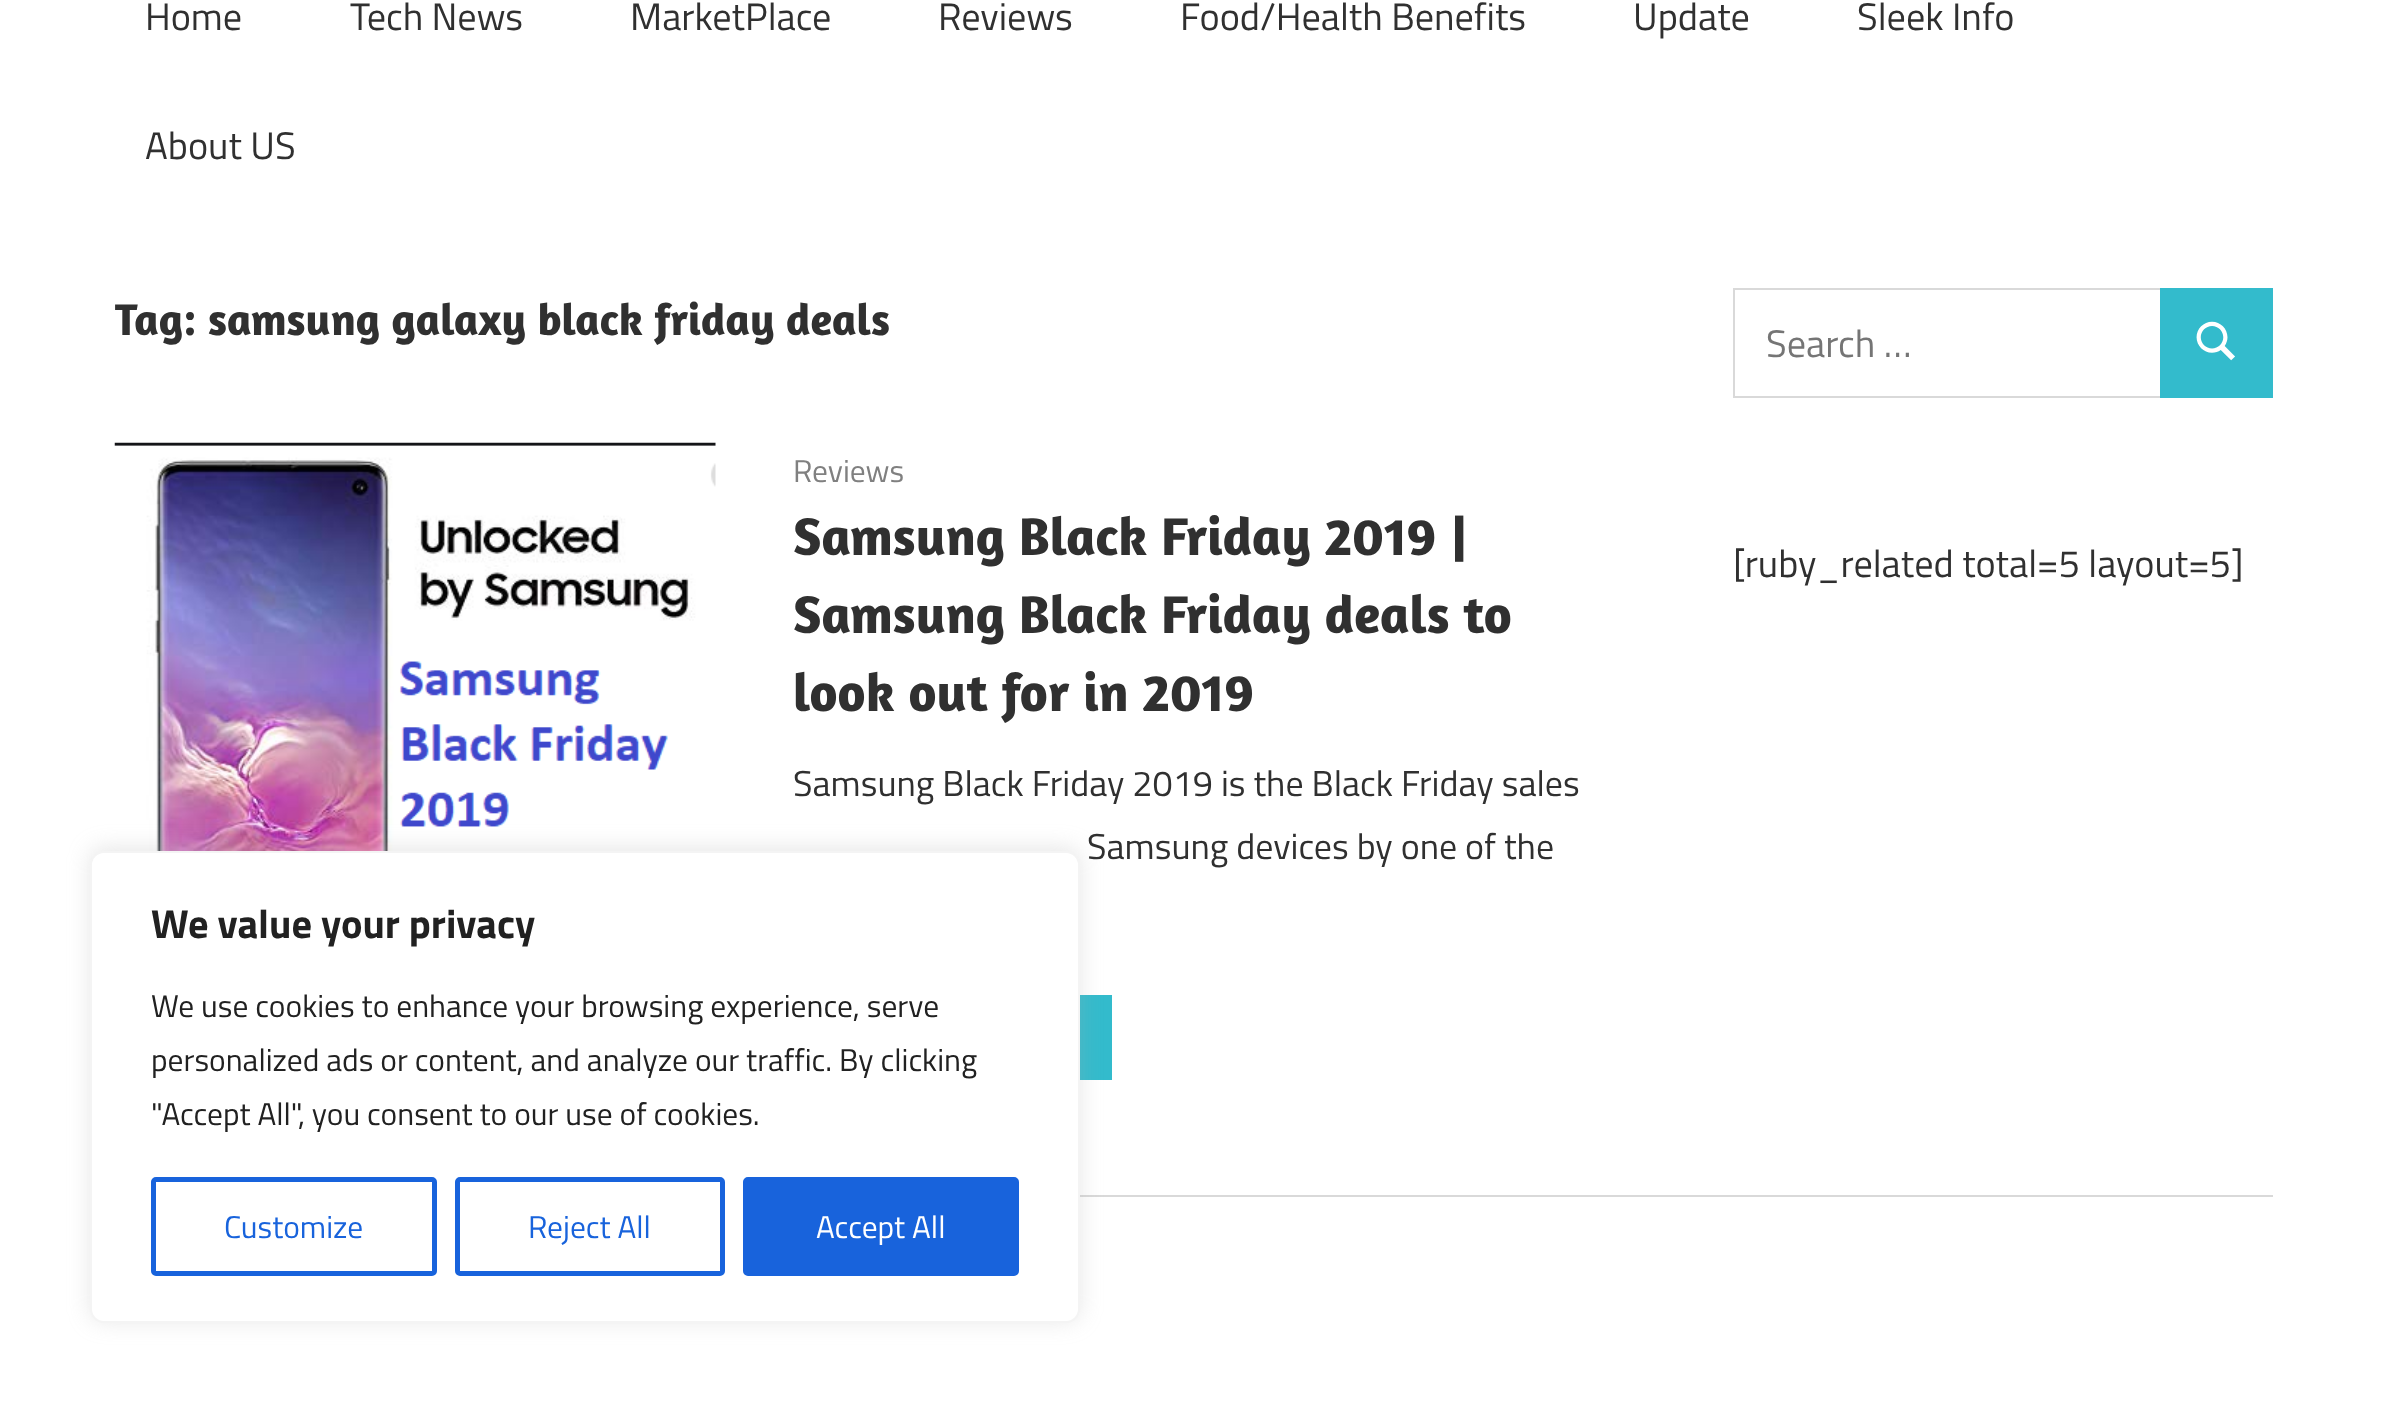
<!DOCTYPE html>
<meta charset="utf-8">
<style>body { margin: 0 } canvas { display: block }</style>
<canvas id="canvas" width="2386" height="1412"></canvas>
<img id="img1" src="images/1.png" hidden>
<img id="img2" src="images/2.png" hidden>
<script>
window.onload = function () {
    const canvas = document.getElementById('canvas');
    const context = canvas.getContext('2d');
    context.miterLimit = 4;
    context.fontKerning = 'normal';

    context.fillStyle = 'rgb(255, 255, 255)';
    context.fillRect(0, 0, 2386, 1412);
    context.drawImage(document.getElementById('img1'), 114, 442, 602, 409);
    context.fillStyle = 'rgb(51, 187, 204)';
    context.fillRect(1080, 995, 32, 85);
    context.strokeStyle = 'rgb(217, 217, 217)';
    context.lineWidth = 2;
    context.strokeRect(1734, 289, 427, 108);
    context.fillRect(2160, 288, 113, 110);
    context.drawImage(document.getElementById('img2'), 2196, 321, 39, 40);
    context.fillStyle = 'rgb(217, 217, 217)';
    context.fillRect(1080, 1195, 1193, 2);
    context.fillStyle = 'rgba(172, 171, 171, 0.3)';
    context.filter = 'blur(11px)';
    context.beginPath();
    context.roundRect(90, 848, 990, 473, 14);
    context.fill();
    context.filter = 'none';
    context.fillStyle = 'rgb(255, 255, 255)';
    context.beginPath();
    context.roundRect(91, 852, 988, 470, 13);
    context.fill();
    context.strokeStyle = 'rgb(244, 244, 244)';
    context.stroke();
    context.beginPath();
    context.roundRect(153.5, 1179.5, 281, 94, 2.5);
    context.strokeStyle = 'rgb(24, 99, 220)';
    context.lineWidth = 5;
    context.stroke();
    context.beginPath();
    context.roundRect(457.5, 1179.5, 265, 94, 2.5);
    context.stroke();
    context.fillStyle = 'rgb(24, 99, 220)';
    context.beginPath();
    context.roundRect(745.5, 1179.5, 271, 94, 2.5);
    context.fill();
    context.stroke();
    context.font = '38.25px Titillium Web';
    context.fillStyle = 'rgb(48, 48, 48)';
    context.fillText('Home', 145, 30);
    context.fillText('Tech News', 350, 30);
    context.fillText('MarketPlace', 630, 30);
    context.fillText('Reviews', 938, 30);
    context.fillText('Food/Health Benefits', 1180, 30);
    context.fillText('Update', 1633, 30);
    context.fillText('Sleek Info', 1857, 30);
    context.fillText('About US', 145, 159);
    context.font = 'bold 45px Amaranth';
    context.fillText('Tag: samsung galaxy black friday deals', 115, 335);
    context.font = '31.5px Titillium Web';
    context.fillStyle = 'rgb(128, 128, 128)';
    context.fillText('Reviews', 793, 482);
    context.font = 'bold 54px Amaranth';
    context.fillStyle = 'rgb(48, 48, 48)';
    context.fillText('Samsung Black Friday 2019 |', 793, 555);
    context.fillText('Samsung Black Friday deals to', 793, 633);
    context.fillText('look out for in 2019', 793, 711);
    context.font = '36px Titillium Web';
    context.fillText('Samsung Black Friday 2019 is the Black Friday sales', 793, 796);
    context.fillText('Samsung devices by one of the', 1087, 859);
    context.font = '38.25px Titillium Web';
    context.fillStyle = 'rgb(117, 117, 117)';
    context.fillText('Search …', 1766, 357);
    context.fillStyle = 'rgb(48, 48, 48)';
    context.fillText('[ruby_related total=5 layout=5]', 1733, 577);
    context.font = 'bold 40.5px Titillium Web';
    context.fillStyle = 'rgb(33, 33, 33)';
    context.fillText('We value your privacy', 151, 938);
    context.font = '31.5px Titillium Web';
    context.fillText('We use cookies to enhance your browsing experience, serve', 151, 1017);
    context.fillText('personalized ads or content, and analyze our traffic. By clicking', 151, 1071);
    context.fillText('"Accept All", you consent to our use of cookies.', 151, 1125);
    context.fillStyle = 'rgb(24, 99, 220)';
    context.fillText('Customize', 224, 1238);
    context.fillText('Reject All', 528, 1238);
    context.fillStyle = 'rgb(255, 255, 255)';
    context.fillText('Accept All', 816, 1238);
};
</script>
